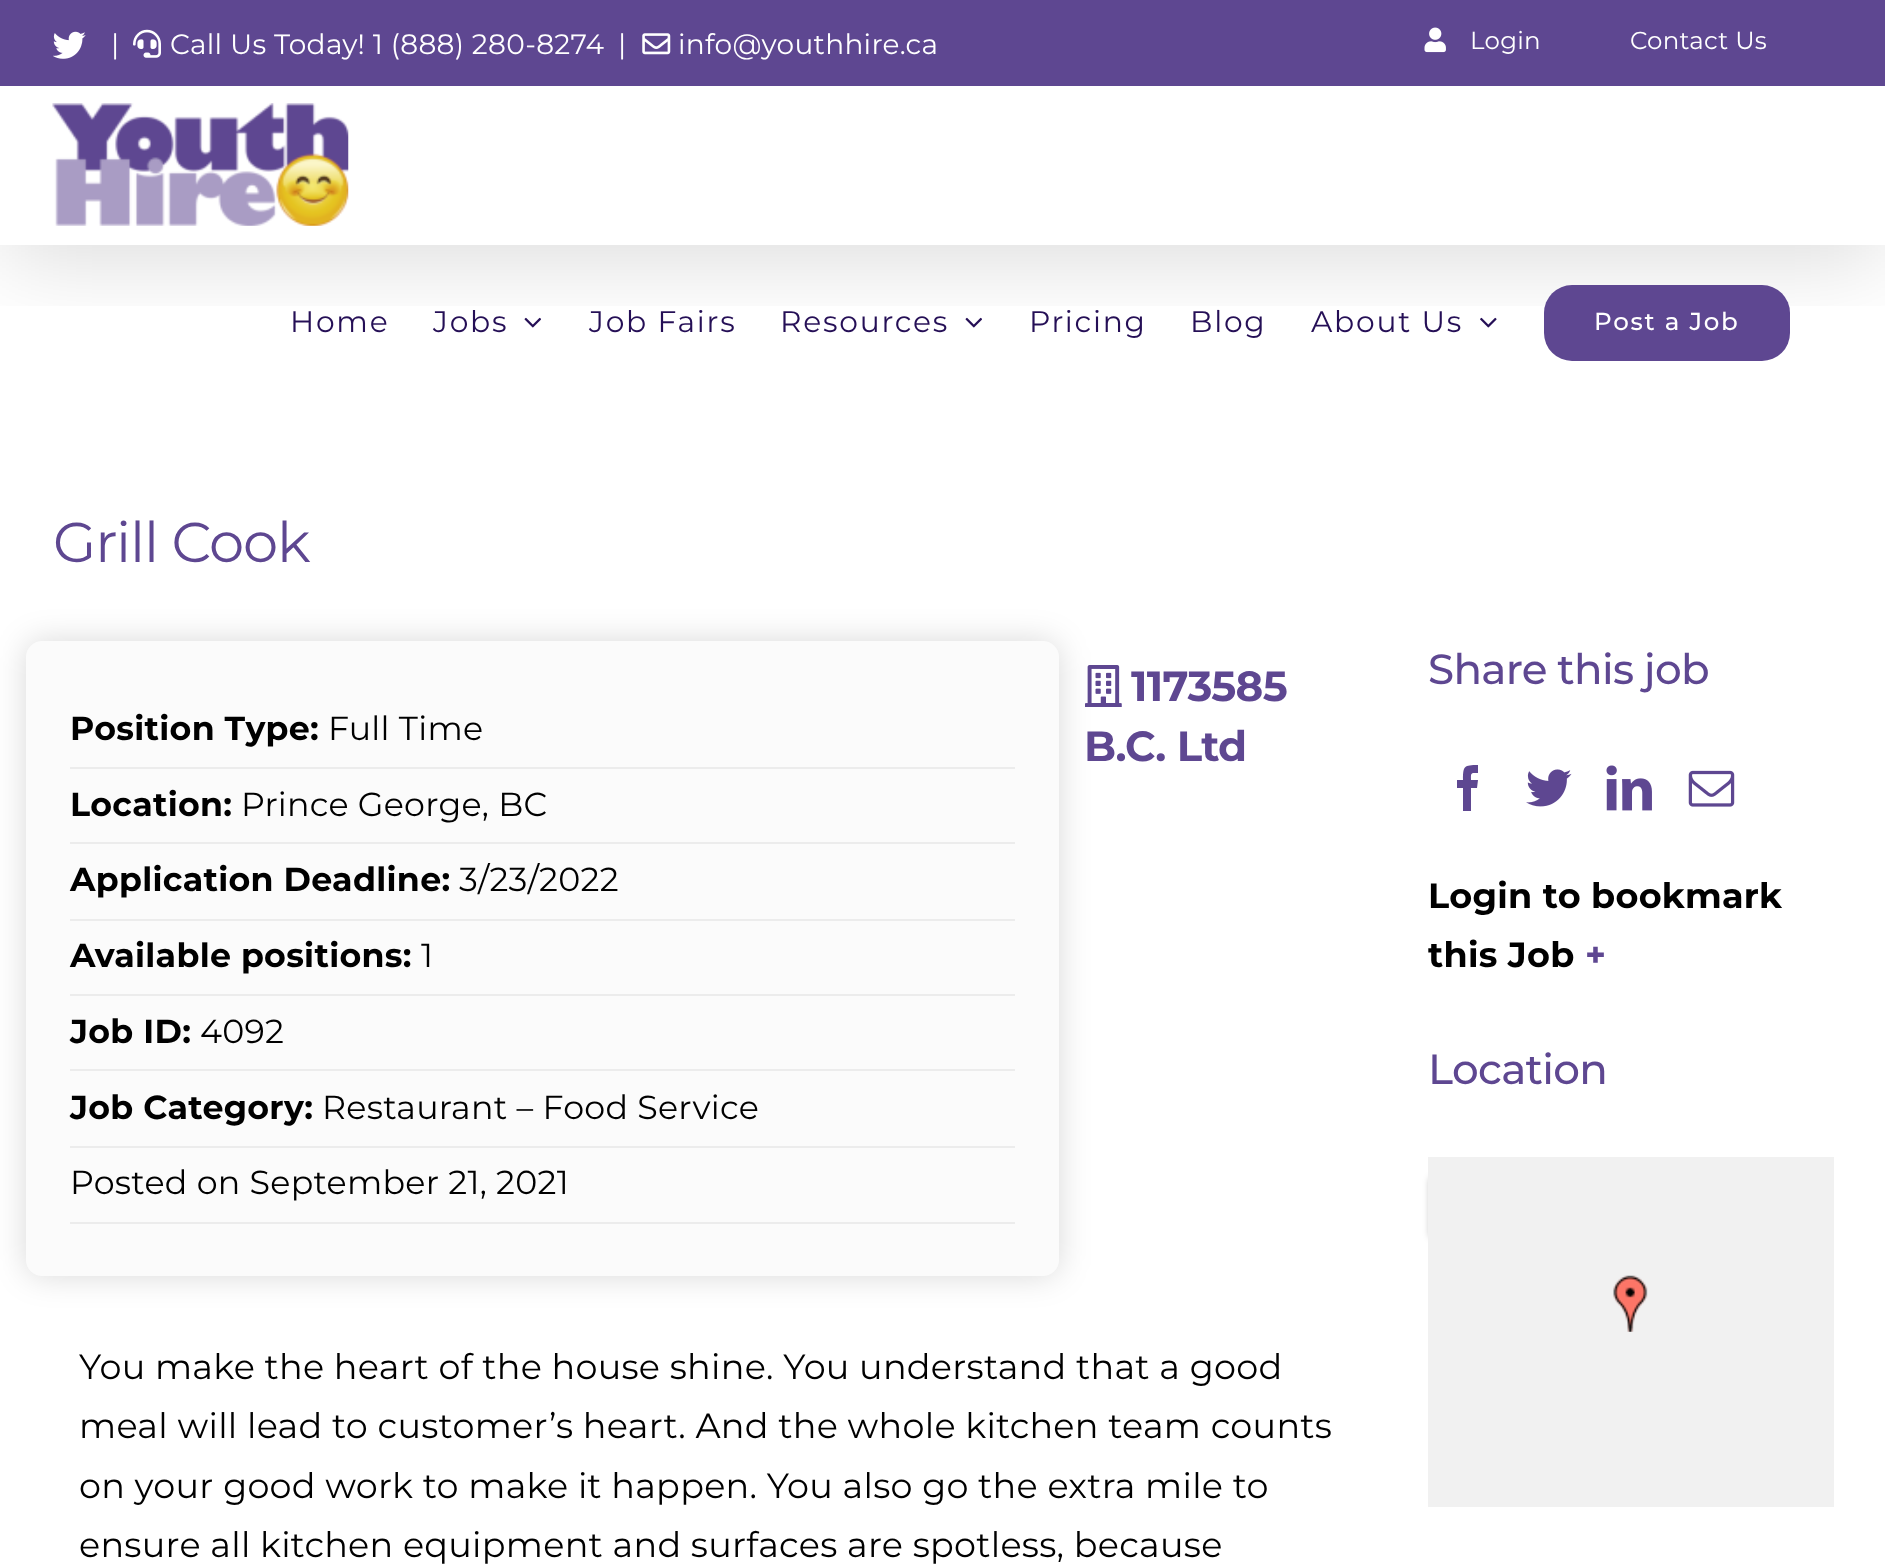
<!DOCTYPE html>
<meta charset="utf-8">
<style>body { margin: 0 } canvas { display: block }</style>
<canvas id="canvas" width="1885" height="1566"></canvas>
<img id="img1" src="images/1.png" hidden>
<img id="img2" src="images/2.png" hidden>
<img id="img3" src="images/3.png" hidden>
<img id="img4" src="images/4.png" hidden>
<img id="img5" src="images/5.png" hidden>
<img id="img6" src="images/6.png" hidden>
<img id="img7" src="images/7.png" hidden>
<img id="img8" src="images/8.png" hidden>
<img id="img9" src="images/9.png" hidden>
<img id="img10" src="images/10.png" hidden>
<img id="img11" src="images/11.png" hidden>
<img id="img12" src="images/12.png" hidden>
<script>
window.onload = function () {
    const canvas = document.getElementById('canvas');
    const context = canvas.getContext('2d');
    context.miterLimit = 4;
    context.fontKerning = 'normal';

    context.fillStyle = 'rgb(255, 255, 255)';
    context.fillRect(0, 0, 1885, 1566);
    context.save();
    context.beginPath();
    context.rect(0, 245, 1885, 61);
    context.clip();
    context.fillStyle = 'rgba(0, 0, 0, 0.14)';
    context.filter = 'blur(44px)';
    context.beginPath();
    context.rect(4, 21, 1879, 238);
    context.fill();
    context.filter = 'none';
    context.restore();
    context.fillStyle = 'rgb(94, 71, 145)';
    context.fillRect(0, 0, 1885, 86);
    context.drawImage(document.getElementById('img1'), 53, 31, 33, 28);
    context.drawImage(document.getElementById('img2'), 133, 29, 28, 29);
    context.drawImage(document.getElementById('img3'), 642, 33, 29, 22);
    context.drawImage(document.getElementById('img4'), 1424, 27, 22, 26);
    context.drawImage(document.getElementById('img5'), 52, 103, 297, 123);
    context.drawImage(document.getElementById('img6'), 524, 317, 17, 11);
    context.drawImage(document.getElementById('img6'), 965, 317, 17, 11);
    context.drawImage(document.getElementById('img7'), 1480, 317, 17, 11);
    context.beginPath();
    context.roundRect(1544, 285, 246, 76, 28);
    context.fill();
    context.fillStyle = 'rgba(0, 0, 0, 0.15)';
    context.filter = 'blur(16px)';
    context.beginPath();
    context.roundRect(26, 641, 1033, 635, 16);
    context.fill();
    context.filter = 'none';
    context.fillStyle = 'rgb(251, 251, 251)';
    context.beginPath();
    context.roundRect(26, 641, 1033, 635, 16);
    context.fill();
    context.fillStyle = 'rgb(236, 236, 236)';
    context.fillRect(70, 767, 945, 2);
    context.fillRect(70, 842, 945, 2);
    context.fillRect(70, 919, 945, 2);
    context.fillRect(70, 994, 945, 2);
    context.fillRect(70, 1069, 945, 2);
    context.fillRect(70, 1146, 945, 2);
    context.fillRect(70, 1222, 945, 2);
    context.drawImage(document.getElementById('img8'), 1085, 665, 37, 42);
    context.fillStyle = 'rgb(94, 71, 145)';
    context.beginPath();
    context.moveTo(1471, 811);
    context.lineTo(1463, 811);
    context.lineTo(1463, 788);
    context.lineTo(1457, 788);
    context.lineTo(1457, 780);
    context.lineTo(1463, 780);
    context.bezierCurveTo(1463, 766, 1464, 765, 1478, 765);
    context.lineTo(1478, 773);
    context.bezierCurveTo(1470, 773, 1471, 773, 1471, 780);
    context.lineTo(1478, 780);
    context.lineTo(1477, 788);
    context.lineTo(1471, 788);
    context.closePath();
    context.fill();
    context.drawImage(document.getElementById('img9'), 1526, 769, 46, 38);
    context.drawImage(document.getElementById('img10'), 1606, 765, 46, 46);
    context.drawImage(document.getElementById('img11'), 1688, 770, 47, 37);
    context.fillStyle = 'rgba(0, 0, 0, 0.3)';
    context.filter = 'blur(3.5px)';
    context.beginPath();
    context.roundRect(1430, 1178, 45, 59, 2);
    context.fill();
    context.filter = 'none';
    context.fillStyle = 'rgb(241, 241, 241)';
    context.fillRect(1428, 1157, 406, 350);
    context.drawImage(document.getElementById('img12'), 1613, 1275, 35, 57);
    context.letterSpacing = '0.28px';
    context.font = '28px Montserrat';
    context.fillStyle = 'rgb(255, 255, 255)';
    context.fillText('|', 111, 54);
    context.fillText('Call Us Today! 1 (888) 280-8274', 170, 54);
    context.fillText('|', 618, 54);
    context.fillText('info@youthhire.ca', 678, 54);
    context.font = '24.5px Montserrat';
    context.fillText('Login', 1470, 49);
    context.fillText('Contact Us', 1630, 49);
    context.letterSpacing = '1.75px';
    context.font = '29.75px Montserrat';
    context.fillStyle = 'rgb(37, 15, 86)';
    context.fillText('Home', 290, 332);
    context.fillText('Jobs', 433, 332);
    context.fillText('Job Fairs', 589, 332);
    context.fillText('Resources', 780, 332);
    context.fillText('Pricing', 1029, 332);
    context.fillText('Blog', 1190, 332);
    context.fillText('About Us', 1311, 332);
    context.font = '500 24.5px Montserrat';
    context.fillStyle = 'rgb(255, 255, 255)';
    context.fillText('Post a Job', 1594, 330);
    context.letterSpacing = '-1.1px';
    context.font = '56px Montserrat';
    context.fillStyle = 'rgb(94, 71, 145)';
    context.fillText('Grill Cook', 53, 562);
    context.letterSpacing = '0.28px';
    context.font = 'bold 33.25px Montserrat';
    context.fillStyle = 'rgb(0, 0, 0)';
    context.fillText('Position Type:', 70, 740);
    context.font = '33.25px Montserrat';
    context.fillText('Full Time', 328, 740);
    context.font = 'bold 33.25px Montserrat';
    context.fillText('Location:', 70, 816);
    context.font = '33.25px Montserrat';
    context.fillText('Prince George, BC', 241, 816);
    context.font = 'bold 33.25px Montserrat';
    context.fillText('Application Deadline:', 70, 891);
    context.font = '33.25px Montserrat';
    context.fillText('3/23/2022', 459, 891);
    context.font = 'bold 33.25px Montserrat';
    context.fillText('Available positions:', 70, 967);
    context.font = '33.25px Montserrat';
    context.fillText('1', 421, 967);
    context.font = 'bold 33.25px Montserrat';
    context.fillText('Job ID:', 70, 1043);
    context.font = '33.25px Montserrat';
    context.fillText('4092', 200, 1043);
    context.font = 'bold 33.25px Montserrat';
    context.fillText('Job Category:', 70, 1119);
    context.font = '33.25px Montserrat';
    context.fillText('Restaurant – Food Service', 322, 1119);
    context.fillText('Posted on September 21, 2021', 70, 1194);
    context.letterSpacing = '-0.7px';
    context.font = 'bold 42px Montserrat';
    context.fillStyle = 'rgb(94, 71, 145)';
    context.fillText('1173585', 1131, 701);
    context.fillText('B.C. Ltd', 1084, 761);
    context.letterSpacing = '0.28px';
    context.font = '35px Montserrat';
    context.fillStyle = 'rgb(0, 0, 0)';
    context.fillText('You make the heart of the house shine. You understand that a good', 79, 1379);
    context.fillText('meal will lead to customer’s heart. And the whole kitchen team counts', 79, 1438);
    context.fillText('on your good work to make it happen. You also go the extra mile to', 79, 1498);
    context.fillText('ensure all kitchen equipment and surfaces are spotless, because', 79, 1557);
    context.letterSpacing = '-0.7px';
    context.font = '500 42px Montserrat';
    context.fillStyle = 'rgb(94, 71, 145)';
    context.fillText('Share this job', 1428, 684);
    context.letterSpacing = '0.28px';
    context.font = 'bold 35px Montserrat';
    context.fillStyle = 'rgb(0, 0, 0)';
    context.fillText('Login to bookmark', 1428, 908);
    context.fillText('this Job', 1428, 967);
    context.fillStyle = 'rgb(94, 71, 145)';
    context.fillText('+', 1585, 967);
    context.letterSpacing = '-0.7px';
    context.font = '500 42px Montserrat';
    context.fillText('Location', 1428, 1084);
};
</script>
